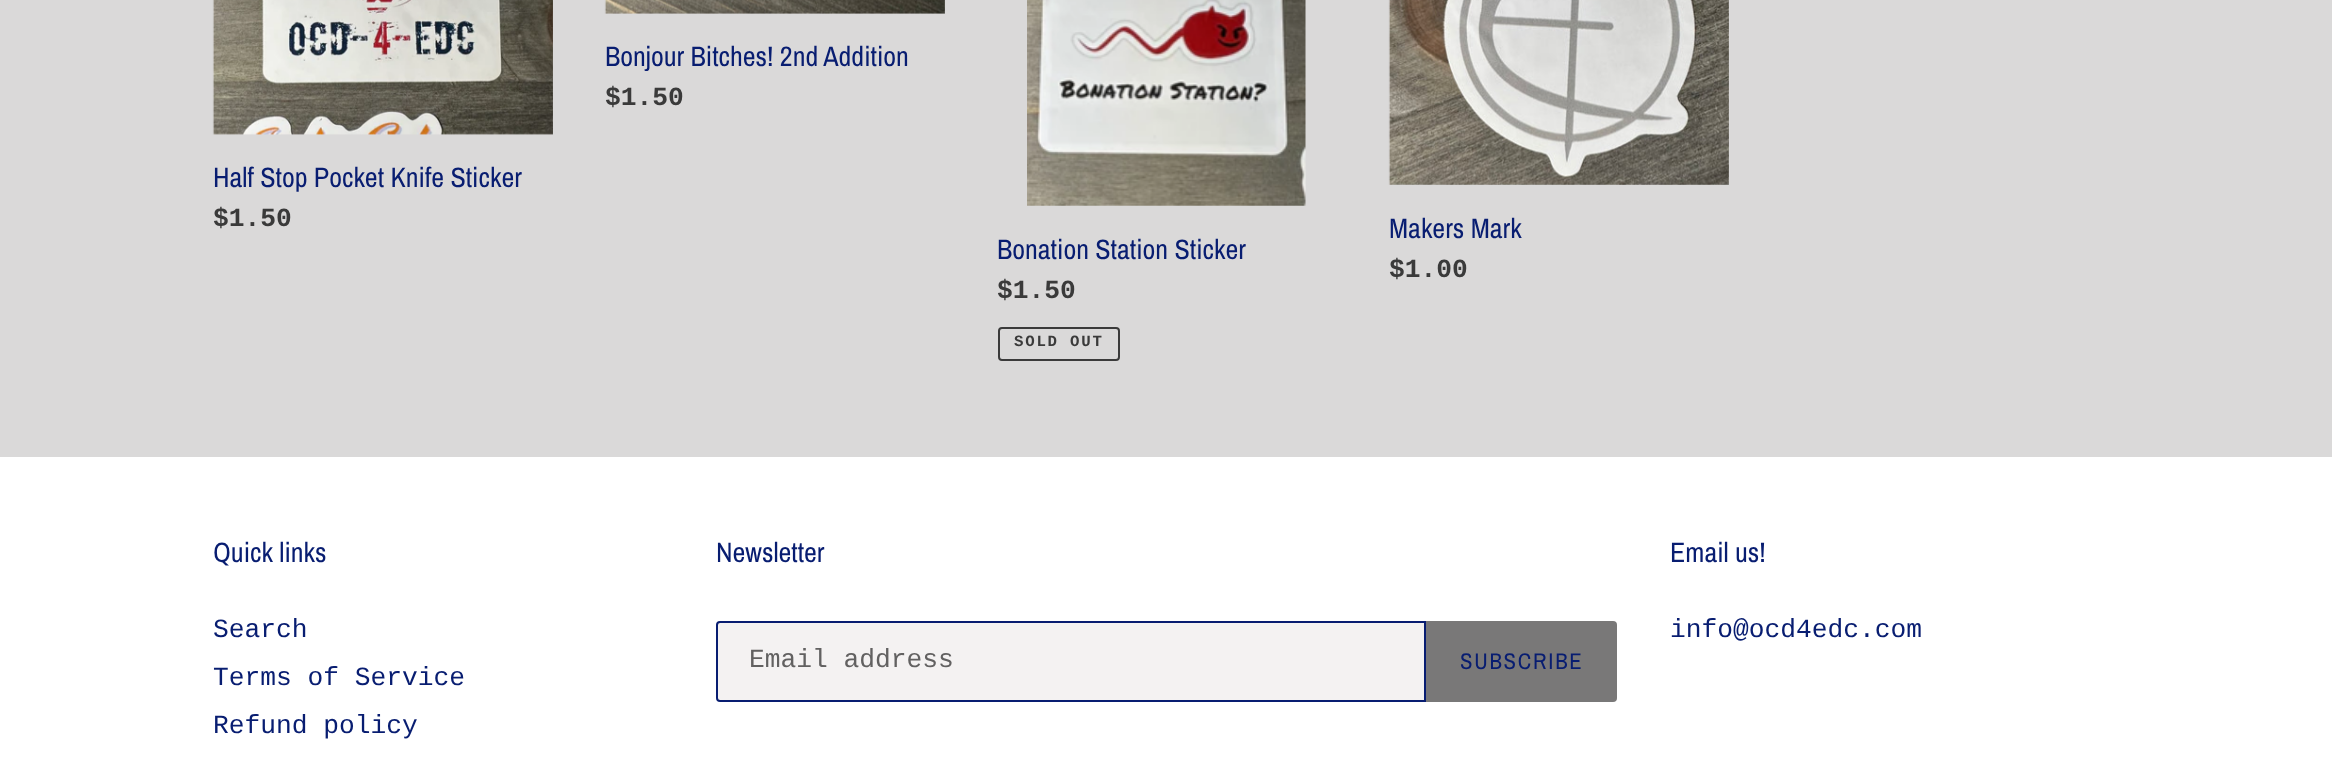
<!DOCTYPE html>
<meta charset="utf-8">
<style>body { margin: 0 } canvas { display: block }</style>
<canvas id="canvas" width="2332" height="776"></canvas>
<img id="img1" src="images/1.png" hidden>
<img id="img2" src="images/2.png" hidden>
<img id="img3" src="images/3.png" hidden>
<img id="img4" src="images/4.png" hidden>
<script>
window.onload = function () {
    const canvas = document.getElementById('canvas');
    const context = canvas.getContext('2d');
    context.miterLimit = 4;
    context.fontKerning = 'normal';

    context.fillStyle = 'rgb(218, 217, 217)';
    context.fillRect(0, 0, 2332, 776);
    context.drawImage(document.getElementById('img1'), 604, 0, 341, 14);
    context.drawImage(document.getElementById('img2'), 212, 0, 341, 135);
    context.drawImage(document.getElementById('img3'), 1027, 0, 279, 206);
    context.beginPath();
    context.roundRect(999, 328, 120, 32, 3);
    context.strokeStyle = 'rgb(58, 58, 58)';
    context.lineWidth = 2;
    context.stroke();
    context.drawImage(document.getElementById('img4'), 1388, 0, 341, 185);
    context.fillStyle = 'rgb(255, 255, 255)';
    context.fillRect(0, 457, 2332, 319);
    context.fillStyle = 'rgb(244, 242, 242)';
    context.beginPath();
    context.roundRect(717, 622, 708, 79, [3, 0, 0, 3]);
    context.fill();
    context.strokeStyle = 'rgb(8, 29, 113)';
    context.stroke();
    context.fillStyle = 'rgb(121, 120, 120)';
    context.beginPath();
    context.roundRect(1426, 621, 191, 81, [0, 4, 4, 0]);
    context.fill();
    context.font = '28px Archivo Narrow';
    context.fillStyle = 'rgb(8, 29, 113)';
    context.fillText('Bonjour Bitches! 2nd Addition', 605, 66);
    context.font = 'bold 26.25px Liberation Mono';
    context.fillStyle = 'rgb(58, 58, 58)';
    context.fillText('$1.50', 605, 105);
    context.font = '28px Archivo Narrow';
    context.fillStyle = 'rgb(8, 29, 113)';
    context.fillText('Half Stop Pocket Knife Sticker', 213, 187);
    context.font = 'bold 26.25px Liberation Mono';
    context.fillStyle = 'rgb(58, 58, 58)';
    context.fillText('$1.50', 213, 226);
    context.font = '28px Archivo Narrow';
    context.fillStyle = 'rgb(8, 29, 113)';
    context.fillText('Bonation Station Sticker', 997, 259);
    context.font = 'bold 26.25px Liberation Mono';
    context.fillStyle = 'rgb(58, 58, 58)';
    context.fillText('$1.50', 997, 298);
    context.letterSpacing = '1.75px';
    context.font = 'bold 15.75px Liberation Mono';
    context.fillText('SOLD OUT', 1014, 346);
    context.letterSpacing = '0px';
    context.font = '28px Archivo Narrow';
    context.fillStyle = 'rgb(8, 29, 113)';
    context.fillText('Makers Mark', 1389, 238);
    context.font = 'bold 26.25px Liberation Mono';
    context.fillStyle = 'rgb(58, 58, 58)';
    context.fillText('$1.00', 1389, 277);
    context.font = '28px Archivo Narrow';
    context.fillStyle = 'rgb(8, 29, 113)';
    context.fillText('Quick links', 213, 562);
    context.font = '26.25px Liberation Mono';
    context.fillText('Search', 213, 637);
    context.fillText('Terms of Service', 213, 685);
    context.fillText('Refund policy', 213, 733);
    context.font = '28px Archivo Narrow';
    context.fillText('Newsletter', 716, 562);
    context.font = '26.25px Liberation Mono';
    context.fillStyle = 'rgb(98, 97, 97)';
    context.fillText('Email address', 749, 667);
    context.letterSpacing = '1.75px';
    context.font = '22.75px Archivo Narrow';
    context.fillStyle = 'rgb(8, 29, 113)';
    context.fillText('SUBSCRIBE', 1460, 669);
    context.letterSpacing = '0px';
    context.font = '28px Archivo Narrow';
    context.fillText('Email us!', 1670, 562);
    context.font = '26.25px Liberation Mono';
    context.fillText('info@ocd4edc.com', 1670, 637);
};
</script>
